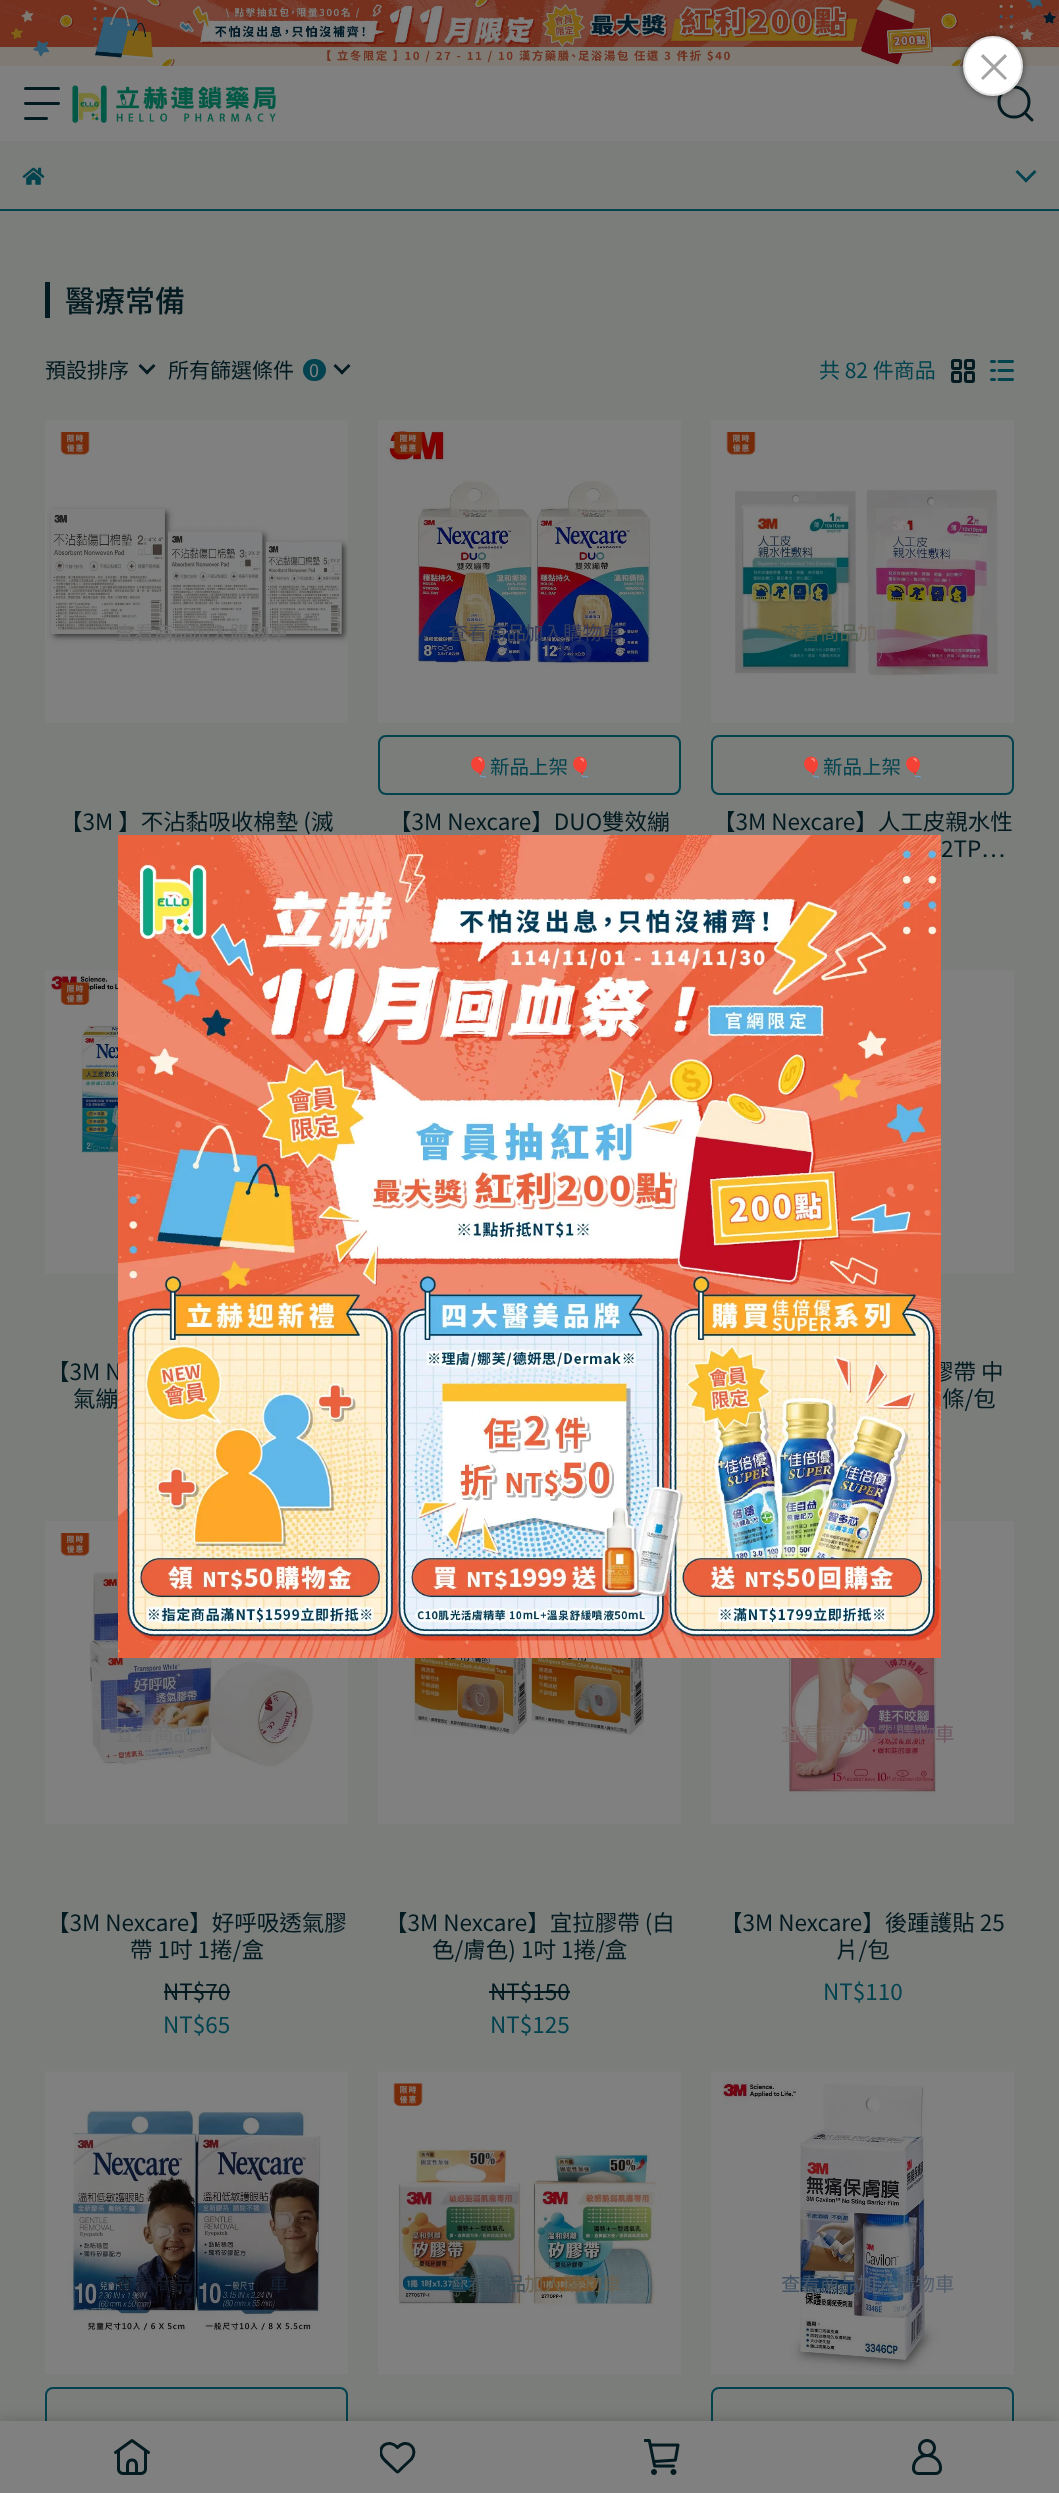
<!DOCTYPE html>
<meta charset="utf-8">
<style>body { margin: 0 } canvas { display: block }</style>
<canvas id="canvas" width="1059" height="2493"></canvas>
<img id="img1" src="images/1.png" hidden>
<img id="img2" src="images/2.png" hidden>
<img id="img3" src="images/3.png" hidden>
<img id="img4" src="images/4.png" hidden>
<img id="img5" src="images/5.png" hidden>
<img id="img6" src="images/6.png" hidden>
<img id="img7" src="images/8.png" hidden>
<img id="img8" src="images/9.png" hidden>
<img id="img9" src="images/10.png" hidden>
<img id="img10" src="images/11.png" hidden>
<img id="img11" src="images/12.png" hidden>
<img id="img12" src="images/13.png" hidden>
<img id="img13" src="images/14.png" hidden>
<img id="img14" src="images/15.png" hidden>
<img id="img15" src="images/16.png" hidden>
<img id="img16" src="images/17.png" hidden>
<img id="img17" src="images/18.png" hidden>
<img id="img18" src="images/19.png" hidden>
<img id="img19" src="images/20.png" hidden>
<img id="img20" src="images/21.png" hidden>
<img id="img21" src="images/22.png" hidden>
<img id="img22" src="images/23.png" hidden>
<img id="img23" src="images/24.png" hidden>
<img id="img24" src="images/25.png" hidden>
<img id="img25" src="images/7.png" hidden>
<script>
window.onload = function () {
    const canvas = document.getElementById('canvas');
    const context = canvas.getContext('2d');
    context.miterLimit = 4;
    context.fontKerning = 'normal';

    context.fillStyle = 'rgb(128, 128, 128)';
    context.fillRect(0, 0, 1059, 2493);
    context.drawImage(document.getElementById('img1'), 0, 0, 1059, 66);
    context.drawImage(document.getElementById('img2'), 24, 87, 36, 33);
    context.drawImage(document.getElementById('img3'), 72, 85, 204, 38);
    context.save();
    context.beginPath();
    context.rect(996, 86, 39, 36);
    context.clip();
    context.beginPath();
    context.moveTo(1029, 102);
    context.bezierCurveTo(1029, 110.5, 1022.5, 117, 1014, 117);
    context.bezierCurveTo(1005.5, 117, 999, 110.5, 999, 102);
    context.bezierCurveTo(999, 93.5, 1005.5, 87, 1014, 87);
    context.bezierCurveTo(1022.5, 87, 1029, 93.5, 1029, 102);
    context.closePath();
    context.strokeStyle = 'rgb(3, 26, 32)';
    context.lineWidth = 3;
    context.lineCap = 'round';
    context.lineJoin = 'round';
    context.stroke();
    context.restore();
    context.beginPath();
    context.moveTo(1026, 114);
    context.lineTo(1032, 120);
    context.strokeStyle = 'rgb(3, 26, 32)';
    context.lineWidth = 3;
    context.lineCap = 'round';
    context.lineJoin = 'round';
    context.stroke();
    context.fillStyle = 'rgb(123, 125, 123)';
    context.fillRect(0, 141, 1059, 2280);
    context.beginPath();
    context.roundRect(46, 2388, 301, 58, 7);
    context.strokeStyle = 'rgb(2, 67, 79)';
    context.lineWidth = 2;
    context.lineJoin = 'miter';
    context.stroke();
    context.beginPath();
    context.roundRect(712, 2388, 301, 58, 7);
    context.stroke();
    context.fillStyle = 'rgba(0, 0, 0, 0.2)';
    context.filter = 'blur(7.5px)';
    context.beginPath();
    context.rect(0, 2421, 1059, 72);
    context.fill();
    context.filter = 'none';
    context.fillStyle = 'rgb(128, 128, 128)';
    context.fillRect(0, 2421, 1059, 72);
    context.drawImage(document.getElementById('img4'), 114, 2439, 36, 36);
    context.save();
    context.beginPath();
    context.rect(380, 2439, 36, 36);
    context.clip();
    context.beginPath();
    context.moveTo(411.5, 2446);
    context.bezierCurveTo(407, 2441.5, 401, 2443.5, 397.5, 2447.5);
    context.bezierCurveTo(388.5, 2438, 376, 2447, 382.5, 2457.5);
    context.bezierCurveTo(385.5, 2461.5, 389.5, 2464.5, 393, 2468);
    context.bezierCurveTo(399, 2474, 396.5, 2473, 404, 2466);
    context.lineTo(411.5, 2459);
    context.bezierCurveTo(414.5, 2455, 415, 2449.5, 411.5, 2446);
    context.closePath();
    context.strokeStyle = 'rgb(3, 26, 32)';
    context.lineWidth = 3;
    context.lineJoin = 'round';
    context.stroke();
    context.restore();
    context.drawImage(document.getElementById('img5'), 644, 2439, 36, 36);
    context.drawImage(document.getElementById('img6'), 912, 2439, 30, 36);
    context.fillStyle = 'rgba(0, 0, 0, 0.5)';
    context.filter = 'blur(3px)';
    context.beginPath();
    context.roundRect(963, 36, 60, 60, 30);
    context.fill();
    context.filter = 'none';
    context.fillStyle = 'rgb(255, 255, 255)';
    context.beginPath();
    context.arc(993, 66, 29, 0, 2 * Math.PI);
    context.fill();
    context.strokeStyle = 'rgb(226, 226, 226)';
    context.stroke();
    context.fillStyle = 'rgb(163, 163, 163)';
    context.beginPath();
    context.moveTo(983, 54);
    context.lineTo(1007, 78);
    context.lineTo(1005, 80);
    context.lineTo(981, 56.5);
    context.closePath();
    context.fill();
    context.beginPath();
    context.moveTo(981, 78);
    context.lineTo(1005, 54);
    context.lineTo(1007, 56.5);
    context.lineTo(983, 80);
    context.closePath();
    context.fill();
    context.fillStyle = 'rgb(2, 67, 79)';
    context.fillRect(0, 209, 1059, 2);
    context.drawImage(document.getElementById('img7'), 22, 167, 23, 18);
    context.beginPath();
    context.moveTo(1024, 180.5);
    context.lineTo(1034.5, 170);
    context.lineTo(1036.5, 172);
    context.lineTo(1026, 182.5);
    context.closePath();
    context.fill();
    context.beginPath();
    context.moveTo(1015.5, 172);
    context.lineTo(1017.5, 170);
    context.lineTo(1028, 180.5);
    context.lineTo(1026, 182.5);
    context.closePath();
    context.fill();
    context.fillStyle = 'rgb(3, 26, 32)';
    context.fillRect(45, 282, 5, 36);
    context.beginPath();
    context.moveTo(153.5, 364);
    context.lineTo(155.5, 366);
    context.lineTo(147, 374.5);
    context.lineTo(145, 372.5);
    context.closePath();
    context.fill();
    context.beginPath();
    context.moveTo(140.5, 364);
    context.lineTo(149, 372.5);
    context.lineTo(147, 374.5);
    context.lineTo(138.5, 366);
    context.closePath();
    context.fill();
    context.beginPath();
    context.moveTo(348.5, 364);
    context.lineTo(350.5, 366);
    context.lineTo(342, 374.5);
    context.lineTo(340, 372.5);
    context.closePath();
    context.fill();
    context.beginPath();
    context.moveTo(335.5, 364);
    context.lineTo(344, 372.5);
    context.lineTo(342, 374.5);
    context.lineTo(333.5, 366);
    context.closePath();
    context.fill();
    context.fillStyle = 'rgb(2, 67, 79)';
    context.beginPath();
    context.roundRect(303, 359, 23, 22, 11);
    context.fill();
    context.beginPath();
    context.roundRect(952.5, 360.5, 8, 8, 1.5);
    context.strokeStyle = 'rgb(3, 26, 32)';
    context.lineWidth = 3;
    context.stroke();
    context.beginPath();
    context.roundRect(952.5, 372.5, 8, 9, 1.5);
    context.stroke();
    context.beginPath();
    context.roundRect(965.5, 360.5, 8, 8, 1.5);
    context.stroke();
    context.beginPath();
    context.roundRect(965.5, 372.5, 8, 9, 1.5);
    context.stroke();
    context.drawImage(document.getElementById('img8'), 990, 360, 24, 21);
    context.drawImage(document.getElementById('img9'), 45, 420, 303, 303);
    context.drawImage(document.getElementById('img10'), 60, 432, 30, 23);
    context.drawImage(document.getElementById('img11'), 378, 420, 303, 303);
    context.drawImage(document.getElementById('img12'), 393, 432, 30, 23);
    context.beginPath();
    context.roundRect(379, 736, 301, 58, 7);
    context.strokeStyle = 'rgb(2, 67, 79)';
    context.lineWidth = 2;
    context.stroke();
    context.drawImage(document.getElementById('img13'), 711, 420, 303, 303);
    context.drawImage(document.getElementById('img10'), 726, 432, 30, 23);
    context.beginPath();
    context.roundRect(712, 736, 301, 58, 7);
    context.stroke();
    context.drawImage(document.getElementById('img14'), 45, 970, 73, 304);
    context.drawImage(document.getElementById('img15'), 60, 982, 30, 23);
    context.drawImage(document.getElementById('img16'), 941, 970, 73, 304);
    context.drawImage(document.getElementById('img17'), 45, 1521, 303, 303);
    context.drawImage(document.getElementById('img18'), 60, 1533, 30, 23);
    context.fillStyle = 'rgb(3, 26, 32)';
    context.fillRect(164, 1991, 66, 2);
    context.drawImage(document.getElementById('img19'), 378, 1658, 303, 166);
    context.fillRect(489, 1991, 81, 2);
    context.drawImage(document.getElementById('img20'), 711, 1521, 303, 303);
    context.drawImage(document.getElementById('img21'), 45, 2071, 303, 304);
    context.drawImage(document.getElementById('img22'), 378, 2071, 303, 304);
    context.drawImage(document.getElementById('img23'), 393, 2083, 30, 23);
    context.drawImage(document.getElementById('img24'), 711, 2071, 303, 304);
    context.font = '500 30px Noto Sans TC';
    context.fillText('醫療常備', 65, 312);
    context.font = '21px Noto Sans TC';
    context.fillText('預設排序', 45, 378);
    context.fillText('所有篩選條件', 168, 378);
    context.font = '18px Noto Sans TC';
    context.fillStyle = 'rgb(128, 128, 128)';
    context.fillText('0', 309, 377);
    context.font = '21px Noto Sans TC';
    context.fillStyle = 'rgb(2, 67, 79)';
    context.fillText('共 82 件商品', 819, 378);
    context.font = '19.5px Noto Sans TC';
    context.fillStyle = 'rgb(111, 111, 111)';
    context.fillText('查看商品', 115, 640);
    context.fillText('加入購物車', 191, 640);
    context.font = '22.5px Noto Sans TC';
    context.fillStyle = 'rgb(3, 26, 32)';
    context.fillText('【3M 】不沾黏吸收棉墊 (滅', 60, 830);
    context.font = '19.5px Noto Sans TC';
    context.fillStyle = 'rgb(62, 69, 89)';
    context.fillText('查看商品', 448, 640);
    context.fillStyle = 'rgb(55, 61, 92)';
    context.fillText('加入購物車', 524, 640);
    context.font = '19.5px Noto Color Emoji';
    context.fillStyle = 'rgb(2, 67, 79)';
    context.fillText('🎈', 466, 774);
    context.font = '19.5px Noto Sans TC';
    context.fillText('新品上架', 490, 774);
    context.font = '19.5px Noto Color Emoji';
    context.fillText('🎈', 568, 774);
    context.font = '22.5px Noto Sans TC';
    context.fillStyle = 'rgb(3, 26, 32)';
    context.fillText('【3M Nexcare】DUO雙效繃', 389, 830);
    context.font = '19.5px Noto Sans TC';
    context.fillStyle = 'rgb(83, 97, 80)';
    context.fillText('查看商品', 781, 640);
    context.fillStyle = 'rgb(118, 107, 96)';
    context.fillText('加', 857, 640);
    context.font = '19.5px Noto Color Emoji';
    context.fillStyle = 'rgb(2, 67, 79)';
    context.fillText('🎈', 799, 774);
    context.font = '19.5px Noto Sans TC';
    context.fillText('新品上架', 823, 774);
    context.font = '19.5px Noto Color Emoji';
    context.fillText('🎈', 901, 774);
    context.font = '22.5px Noto Sans TC';
    context.fillStyle = 'rgb(3, 26, 32)';
    context.fillText('【3M Nexcare】人工皮親水性', 713, 830);
    context.fillText('2TP…', 941, 857);
    context.fillText('【3M N', 47, 1380);
    context.fillText('氣繃', 73, 1407);
    context.fillText('膠帶 中', 931, 1380);
    context.drawImage(document.getElementById('img25'), 118, 835, 823, 823);
    context.fillText('條/包', 942, 1407);
    context.font = '19.5px Noto Sans TC';
    context.fillStyle = 'rgb(111, 111, 111)';
    context.fillText('查看商品', 115, 1741);
    context.font = '22.5px Noto Sans TC';
    context.fillStyle = 'rgb(3, 26, 32)';
    context.fillText('【3M Nexcare】好呼吸透氣膠', 47, 1931);
    context.fillText('帶 1吋 1捲/盒', 130, 1958);
    context.fillText('NT$70', 163, 2000);
    context.fillStyle = 'rgb(2, 67, 79)';
    context.fillText('NT$65', 163, 2033);
    context.fillStyle = 'rgb(3, 26, 32)';
    context.fillText('【3M Nexcare】宜拉膠帶 (白', 385, 1931);
    context.fillText('色/膚色) 1吋 1捲/盒', 432, 1958);
    context.fillText('NT$150', 490, 2000);
    context.fillStyle = 'rgb(2, 67, 79)';
    context.fillText('NT$125', 490, 2033);
    context.font = '19.5px Noto Sans TC';
    context.fillStyle = 'rgb(122, 111, 109)';
    context.fillText('查看商品', 781, 1741);
    context.fillStyle = 'rgb(111, 87, 98)';
    context.fillText('加入購物車', 857, 1741);
    context.font = '22.5px Noto Sans TC';
    context.fillStyle = 'rgb(3, 26, 32)';
    context.fillText('【3M Nexcare】後踵護貼 25', 720, 1931);
    context.fillText('片/包', 836, 1958);
    context.fillStyle = 'rgb(2, 67, 79)';
    context.fillText('NT$110', 823, 2000);
    context.font = '19.5px Noto Sans TC';
    context.fillStyle = 'rgb(20, 27, 40)';
    context.fillText('查看商品', 115, 2291);
    context.fillStyle = 'rgb(21, 34, 50)';
    context.fillText('車', 269, 2291);
    context.fillStyle = 'rgb(62, 80, 89)';
    context.fillText('查看商品', 448, 2291);
    context.fillStyle = 'rgb(108, 98, 80)';
    context.fillText('加入購物車', 524, 2291);
    context.fillStyle = 'rgb(69, 85, 101)';
    context.fillText('查看商品', 781, 2291);
    context.fillStyle = 'rgb(82, 93, 108)';
    context.fillText('加入購物車', 857, 2291);
};
</script>
